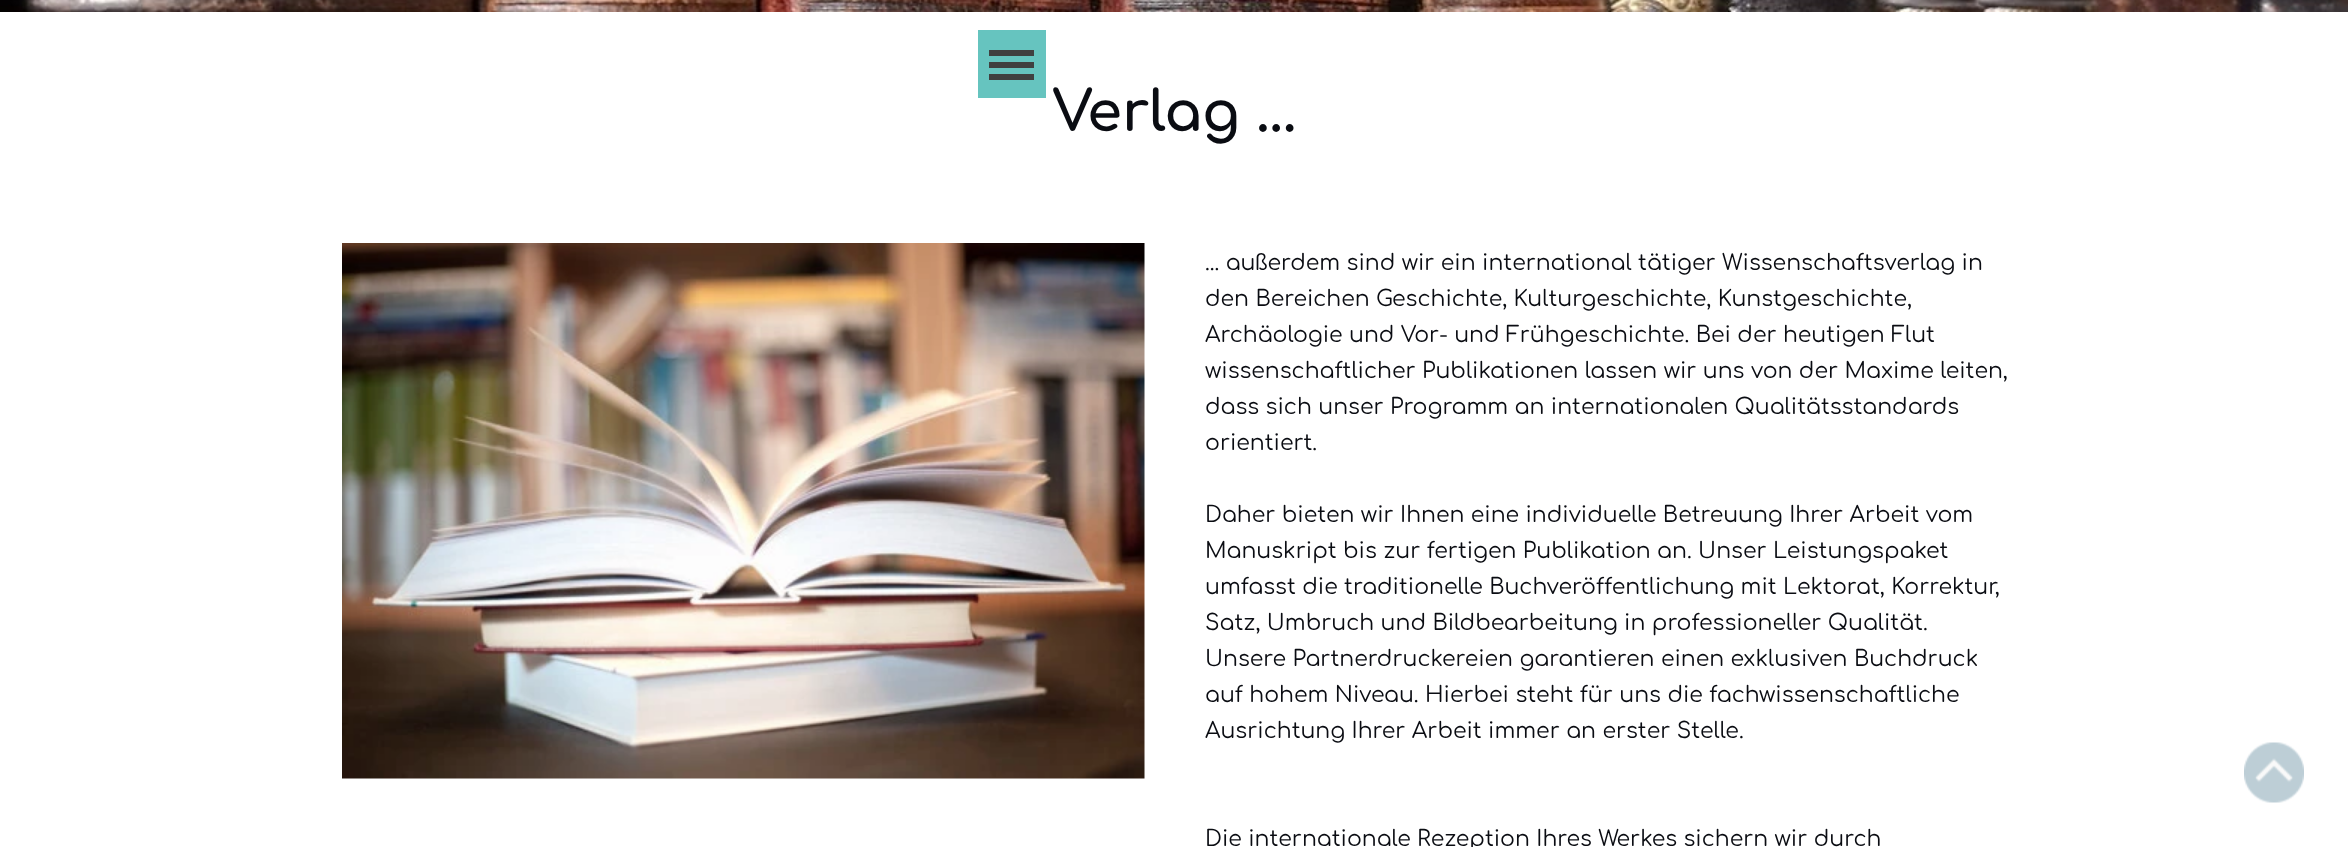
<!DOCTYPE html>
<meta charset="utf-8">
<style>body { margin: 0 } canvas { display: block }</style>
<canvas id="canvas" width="2348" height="847"></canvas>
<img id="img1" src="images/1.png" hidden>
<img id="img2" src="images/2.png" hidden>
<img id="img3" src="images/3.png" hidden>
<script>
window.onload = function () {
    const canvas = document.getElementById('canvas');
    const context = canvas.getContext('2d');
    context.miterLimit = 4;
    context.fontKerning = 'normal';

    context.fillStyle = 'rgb(255, 255, 255)';
    context.fillRect(0, 0, 2348, 847);
    context.drawImage(document.getElementById('img1'), 0, 0, 2348, 12);
    context.fillStyle = 'rgb(102, 196, 191)';
    context.fillRect(978, 30, 68, 68);
    context.fillStyle = 'rgb(64, 64, 64)';
    context.fillRect(989, 50, 45, 6);
    context.fillRect(989, 62, 45, 6);
    context.fillRect(989, 74, 45, 6);
    context.drawImage(document.getElementById('img2'), 342, 243, 803, 536);
    context.drawImage(document.getElementById('img3'), 2244, 742, 60, 61);
    context.font = 'bold 56px Comfortaa';
    context.fillStyle = 'rgb(10, 12, 18)';
    context.fillText('Verlag ...', 1052, 131);
    context.font = '22px Comfortaa';
    context.fillText('... außerdem sind wir ein international tätiger Wissenschaftsverlag in', 1205, 270);
    context.fillText('den Bereichen Geschichte, Kulturgeschichte, Kunstgeschichte,', 1205, 306);
    context.fillText('Archäologie und Vor- und Frühgeschichte. Bei der heutigen Flut', 1205, 342);
    context.fillText('wissenschaftlicher Publikationen lassen wir uns von der Maxime leiten,', 1205, 378);
    context.fillText('dass sich unser Programm an internationalen Qualitätsstandards', 1205, 414);
    context.fillText('orientiert.', 1205, 450);
    context.fillText('Daher bieten wir Ihnen eine individuelle Betreuung Ihrer Arbeit vom', 1205, 522);
    context.fillText('Manuskript bis zur fertigen Publikation an. Unser Leistungspaket', 1205, 558);
    context.fillText('umfasst die traditionelle Buchveröffentlichung mit Lektorat, Korrektur,', 1205, 594);
    context.fillText('Satz, Umbruch und Bildbearbeitung in professioneller Qualität.', 1205, 630);
    context.fillText('Unsere Partnerdruckereien garantieren einen exklusiven Buchdruck', 1205, 666);
    context.fillText('auf hohem Niveau. Hierbei steht für uns die fachwissenschaftliche', 1205, 702);
    context.fillText('Ausrichtung Ihrer Arbeit immer an erster Stelle.', 1205, 738);
    context.fillText('Die internationale Rezeption Ihres Werkes sichern wir durch', 1205, 846);
};
</script>
